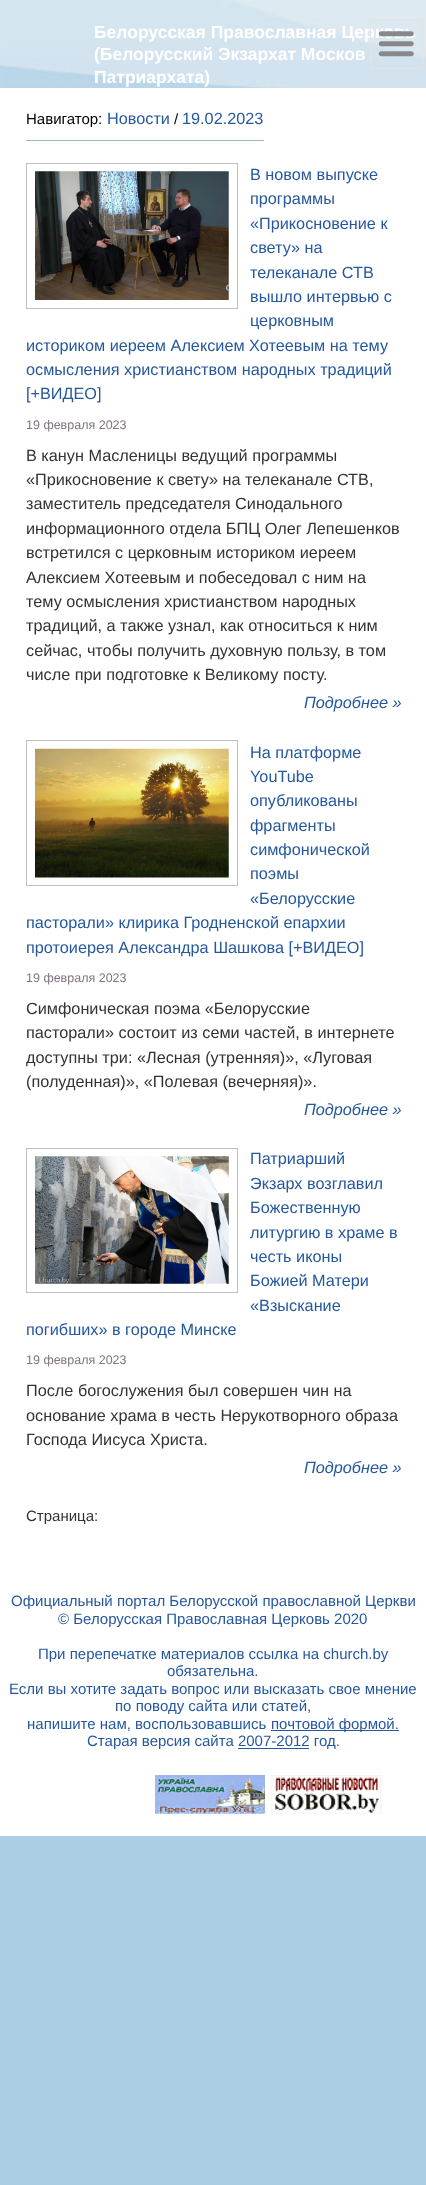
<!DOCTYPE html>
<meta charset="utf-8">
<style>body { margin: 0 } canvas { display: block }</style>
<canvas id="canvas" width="426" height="2185"></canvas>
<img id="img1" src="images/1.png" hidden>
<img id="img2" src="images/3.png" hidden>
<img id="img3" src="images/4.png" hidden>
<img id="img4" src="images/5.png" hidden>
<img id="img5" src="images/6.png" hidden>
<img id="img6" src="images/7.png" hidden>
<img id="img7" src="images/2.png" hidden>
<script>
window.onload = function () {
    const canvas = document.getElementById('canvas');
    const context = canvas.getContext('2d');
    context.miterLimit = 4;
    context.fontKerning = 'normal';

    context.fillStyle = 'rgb(171, 206, 228)';
    context.fillRect(0, 0, 426, 2185);
    context.drawImage(document.getElementById('img1'), 0, 0, 426, 88);
    context.fillStyle = 'rgb(255, 255, 255)';
    context.fillRect(0, 88, 426, 1748);
    context.fillStyle = 'rgb(155, 183, 203)';
    context.fillRect(26, 140, 238, 1);
    context.strokeStyle = 'rgb(192, 192, 192)';
    context.strokeRect(26.5, 163.5, 211, 145);
    context.drawImage(document.getElementById('img2'), 35, 171, 194, 129);
    context.strokeRect(26.5, 740.5, 211, 145);
    context.drawImage(document.getElementById('img3'), 35, 748, 194, 130);
    context.strokeRect(26.5, 1148.5, 211, 144);
    context.drawImage(document.getElementById('img4'), 35, 1156, 194, 128);
    context.fillStyle = 'rgb(37, 88, 159)';
    context.fillRect(271, 1730, 128, 1);
    context.fillRect(238, 1748, 71, 1);
    context.drawImage(document.getElementById('img5'), 155, 1775, 110, 39);
    context.drawImage(document.getElementById('img6'), 271, 1775, 111, 39);
    context.font = 'bold 17.5px Liberation Sans';
    context.fillStyle = 'rgb(255, 255, 255)';
    context.fillText('Белорусская Православная Церковь', 94, 38);
    context.strokeStyle = 'rgb(227, 227, 227)';
    context.strokeRect(370.5, 19.5, 52, 49);
    context.drawImage(document.getElementById('img7'), 378, 31, 36, 26);
    context.fillText('(Белорусский Экзархат Москов', 94, 60);
    context.fillText('Патриархата)', 94, 83);
    context.font = '15px Liberation Sans';
    context.fillStyle = 'rgb(0, 0, 0)';
    context.fillText('Навигатор:', 26, 124);
    context.font = '16.25px Liberation Sans';
    context.fillStyle = 'rgb(37, 88, 159)';
    context.fillText('Новости', 107, 124);
    context.font = '15px Liberation Sans';
    context.fillStyle = 'rgb(0, 0, 0)';
    context.fillText('/', 174, 124);
    context.font = '16.25px Liberation Sans';
    context.fillStyle = 'rgb(37, 88, 159)';
    context.fillText('19.02.2023', 182, 124);
    context.fillText('В новом выпуске', 250, 180);
    context.fillText('программы', 250, 204);
    context.fillText('«Прикосновение к', 250, 229);
    context.fillText('свету» на', 250, 253);
    context.fillText('телеканале СТВ', 250, 278);
    context.fillText('вышло интервью с', 250, 302);
    context.fillText('церковным', 250, 326);
    context.fillText('историком иереем Алексием Хотеевым на тему', 26, 351);
    context.fillText('осмысления христианством народных традиций', 26, 375);
    context.fillText('[+ВИДЕО]', 26, 399);
    context.font = '12.5px Liberation Sans';
    context.fillStyle = 'rgb(128, 117, 128)';
    context.fillText('19 февраля 2023', 26, 429);
    context.font = '16.25px Liberation Sans';
    context.fillStyle = 'rgb(51, 51, 51)';
    context.fillText('В канун Масленицы ведущий программы', 26, 461);
    context.fillText('«Прикосновение к свету» на телеканале СТВ,', 26, 485);
    context.fillText('заместитель председателя Синодального', 26, 509);
    context.fillText('информационного отдела БПЦ Олег Лепешенков', 26, 534);
    context.fillText('встретился с церковным историком иереем', 26, 558);
    context.fillText('Алексием Хотеевым и побеседовал с ним на', 26, 583);
    context.fillText('тему осмысления христианством народных', 26, 607);
    context.fillText('традиций, а также узнал, как относиться к ним', 26, 631);
    context.fillText('сейчас, чтобы получить духовную пользу, в том', 26, 656);
    context.fillText('числе при подготовке к Великому посту.', 26, 680);
    context.font = 'italic 16.25px Liberation Sans';
    context.fillStyle = 'rgb(37, 88, 159)';
    context.fillText('Подробнее »', 304, 708);
    context.font = '16.25px Liberation Sans';
    context.fillText('На платформе', 250, 758);
    context.fillText('YouTube', 250, 782);
    context.fillText('опубликованы', 250, 806);
    context.fillText('фрагменты', 250, 831);
    context.fillText('симфонической', 250, 855);
    context.fillText('поэмы', 250, 879);
    context.fillText('«Белорусские', 250, 904);
    context.fillText('пасторали» клирика Гродненской епархии', 26, 928);
    context.fillText('протоиерея Александра Шашкова [+ВИДЕО]', 26, 953);
    context.font = '12.5px Liberation Sans';
    context.fillStyle = 'rgb(128, 117, 128)';
    context.fillText('19 февраля 2023', 26, 982);
    context.font = '16.25px Liberation Sans';
    context.fillStyle = 'rgb(51, 51, 51)';
    context.fillText('Симфоническая поэма «Белорусские', 26, 1014);
    context.fillText('пасторали» состоит из семи частей, в интернете', 26, 1038);
    context.fillText('доступны три: «Лесная (утренняя)», «Луговая', 26, 1063);
    context.fillText('(полуденная)», «Полевая (вечерняя)».', 26, 1087);
    context.font = 'italic 16.25px Liberation Sans';
    context.fillStyle = 'rgb(37, 88, 159)';
    context.fillText('Подробнее »', 304, 1115);
    context.font = '16.25px Liberation Sans';
    context.fillText('Патриарший', 250, 1164);
    context.fillText('Экзарх возглавил', 250, 1189);
    context.fillText('Божественную', 250, 1213);
    context.fillText('литургию в храме в', 250, 1238);
    context.fillText('честь иконы', 250, 1262);
    context.fillText('Божией Матери', 250, 1286);
    context.fillText('«Взыскание', 250, 1311);
    context.fillText('погибших» в городе Минске', 26, 1335);
    context.font = '12.5px Liberation Sans';
    context.fillStyle = 'rgb(128, 117, 128)';
    context.fillText('19 февраля 2023', 26, 1364);
    context.font = '16.25px Liberation Sans';
    context.fillStyle = 'rgb(51, 51, 51)';
    context.fillText('После богослужения был совершен чин на', 26, 1396);
    context.fillText('основание храма в честь Нерукотворного образа', 26, 1421);
    context.fillText('Господа Иисуса Христа.', 26, 1445);
    context.font = 'italic 16.25px Liberation Sans';
    context.fillStyle = 'rgb(37, 88, 159)';
    context.fillText('Подробнее »', 304, 1473);
    context.font = '15px Liberation Sans';
    context.fillStyle = 'rgb(51, 51, 51)';
    context.fillText('Страница:', 26, 1521);
    context.fillStyle = 'rgb(37, 88, 159)';
    context.fillText('Официальный портал Белорусской православной Церкви', 11, 1606);
    context.fillText('© Белорусская Православная Церковь 2020', 58, 1624);
    context.fillText('При перепечатке материалов ссылка на church.by', 38, 1659);
    context.fillText('обязательна.', 167, 1676);
    context.fillText('Если вы хотите задать вопрос или высказать свое мнение', 9, 1694);
    context.fillText('по поводу сайта или статей,', 115, 1711);
    context.fillText('напишите нам, воспользовавшись', 27, 1729);
    context.fillText('почтовой формой.', 271, 1729);
    context.fillText('Старая версия сайта 2007-2012 год.', 87, 1746);
};
</script>
